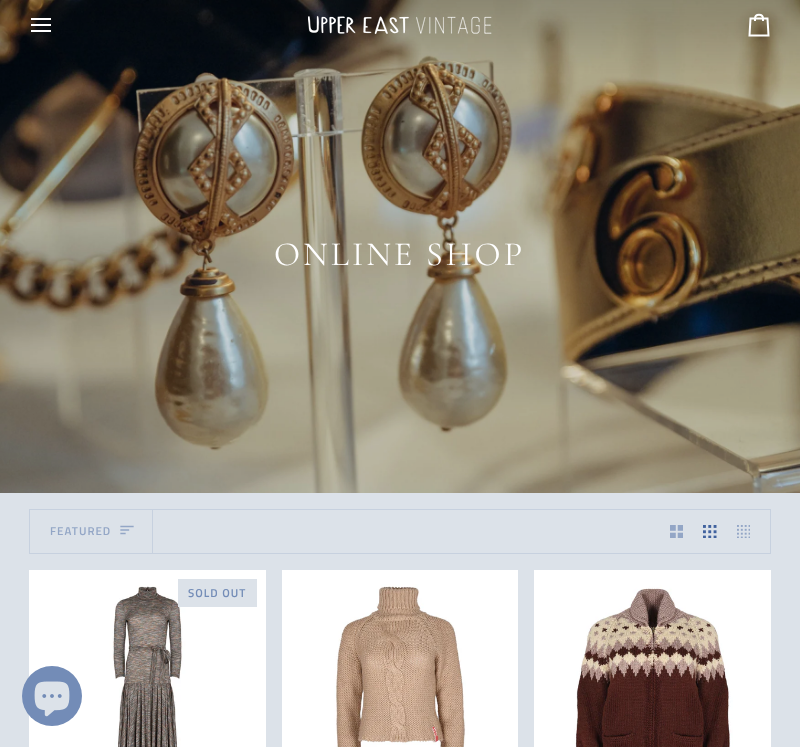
<!DOCTYPE html>
<meta charset="utf-8">
<style>body { margin: 0 } canvas { display: block }</style>
<canvas id="canvas" width="800" height="747"></canvas>
<img id="img1" src="images/2.png" hidden>
<img id="img2" src="images/1.png" hidden>
<img id="img3" src="images/3.png" hidden>
<img id="img4" src="images/4.png" hidden>
<img id="img5" src="images/5.png" hidden>
<img id="img6" src="images/6.png" hidden>
<img id="img7" src="images/7.png" hidden>
<img id="img8" src="images/8.png" hidden>
<img id="img9" src="images/9.png" hidden>
<script>
window.onload = function () {
    const canvas = document.getElementById('canvas');
    const context = canvas.getContext('2d');
    context.miterLimit = 4;
    context.fontKerning = 'normal';

    context.fillStyle = 'rgb(220, 226, 233)';
    context.fillRect(0, 0, 800, 747);
    context.drawImage(document.getElementById('img1'), 0, 0, 800, 493);
    context.beginPath();
    context.moveTo(50, 19);
    context.lineTo(32, 19);
    context.moveTo(50, 25);
    context.lineTo(32, 25);
    context.moveTo(50, 31);
    context.lineTo(32, 31);
    context.strokeStyle = 'rgb(255, 255, 255)';
    context.lineWidth = 2;
    context.lineCap = 'square';
    context.stroke();
    context.drawImage(document.getElementById('img2'), 308, 15, 184, 20);
    context.beginPath();
    context.moveTo(763, 21);
    context.lineTo(763, 18.5);
    context.lineTo(767.5, 18.5);
    context.lineTo(768.5, 35.5);
    context.lineTo(749.5, 35.5);
    context.lineTo(750.5, 18.5);
    context.lineTo(755, 18.5);
    context.bezierCurveTo(755, 13.5, 763, 13.5, 763, 18.5);
    context.lineTo(755, 18.5);
    context.lineTo(755, 21);
    context.lineCap = 'butt';
    context.stroke();
    context.strokeStyle = 'rgb(199, 209, 223)';
    context.lineWidth = 1;
    context.strokeRect(29.5, 509.5, 741, 44);
    context.fillStyle = 'rgb(199, 209, 223)';
    context.fillRect(152, 510, 1, 43);
    context.beginPath();
    context.moveTo(133, 526.5);
    context.lineTo(121, 526.5);
    context.moveTo(128.5, 530);
    context.lineTo(121, 530);
    context.moveTo(125, 533.5);
    context.lineTo(121, 533.5);
    context.strokeStyle = 'rgb(147, 166, 198)';
    context.lineWidth = 1.3;
    context.lineCap = 'square';
    context.stroke();
    context.drawImage(document.getElementById('img3'), 670, 525, 13, 13);
    context.drawImage(document.getElementById('img4'), 703, 525, 14, 13);
    context.drawImage(document.getElementById('img5'), 737, 525, 13, 13);
    context.drawImage(document.getElementById('img6'), 29, 570, 237, 177);
    context.fillStyle = 'rgb(220, 226, 233)';
    context.fillRect(178, 579, 79, 28);
    context.drawImage(document.getElementById('img7'), 282, 570, 236, 177);
    context.drawImage(document.getElementById('img8'), 534, 570, 237, 177);
    context.fillStyle = 'rgb(115, 140, 183)';
    context.beginPath();
    context.arc(52, 696, 30, 0, 2 * Math.PI);
    context.fill();
    context.drawImage(document.getElementById('img9'), 34, 681, 36, 36);
    context.letterSpacing = '3px';
    context.font = '300 34px Cormorant';
    context.fillStyle = 'rgb(255, 255, 255)';
    context.fillText('ONLINE SHOP', 274, 265);
    context.letterSpacing = '1px';
    context.font = '600 11.5px Titillium Web';
    context.fillStyle = 'rgb(147, 166, 198)';
    context.fillText('FEATURED', 50, 535);
    context.fillStyle = 'rgb(115, 140, 183)';
    context.fillText('SOLD OUT', 188, 597);
};
</script>
